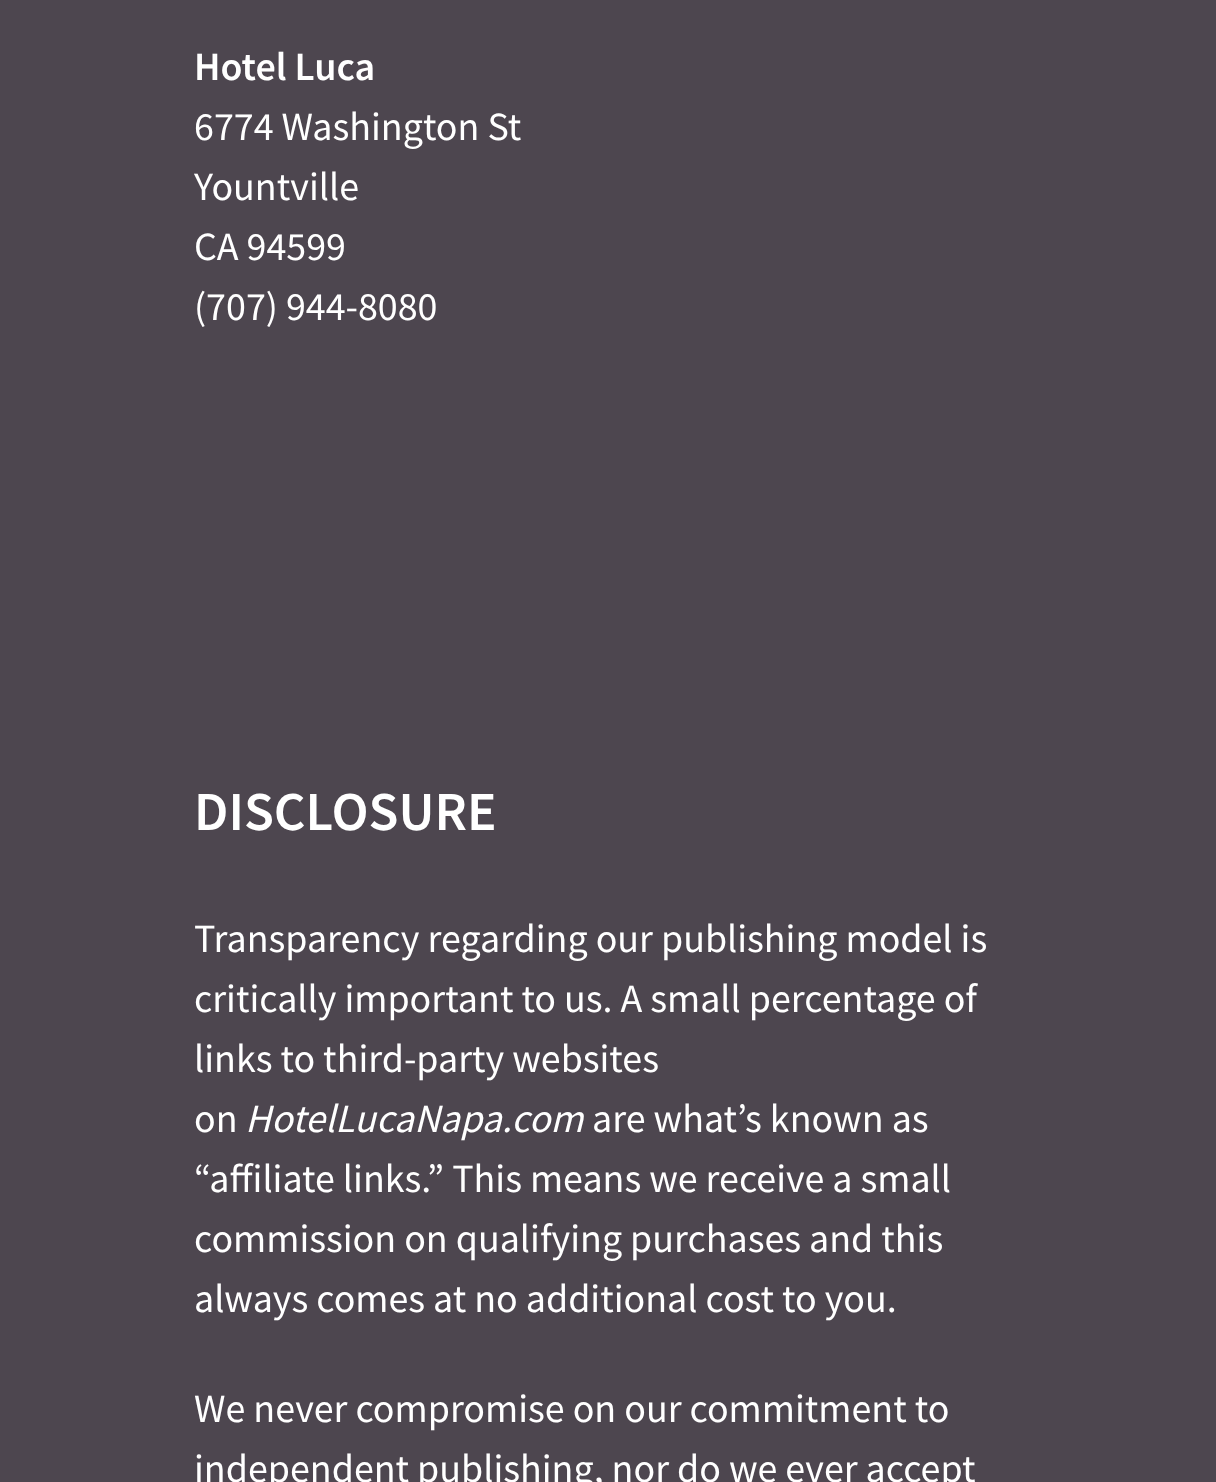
<!DOCTYPE html>
<meta charset="utf-8">
<style>body { margin: 0 } canvas { display: block }</style>
<canvas id="canvas" width="1216" height="1482"></canvas>
<script>
window.onload = function () {
    const canvas = document.getElementById('canvas');
    const context = canvas.getContext('2d');
    context.miterLimit = 4;
    context.fontKerning = 'normal';

    context.fillStyle = 'rgb(77, 70, 79)';
    context.fillRect(0, 0, 1216, 1482);
    context.font = '600 40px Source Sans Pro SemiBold';
    context.fillStyle = 'rgb(255, 255, 255)';
    context.fillText('Hotel Luca', 194, 80);
    context.font = '40px Source Sans Pro';
    context.fillText('6774 Washington St', 194, 140);
    context.fillText('Yountville', 194, 200);
    context.fillText('CA 94599', 194, 260);
    context.fillText('(707) 944-8080', 194, 320);
    context.font = '600 55px Source Sans Pro SemiBold';
    context.fillText('DISCLOSURE', 194, 830);
    context.font = '40px Source Sans Pro';
    context.fillText('Transparency regarding our publishing model is', 194, 952);
    context.fillText('critically important to us. A small percentage of', 194, 1012);
    context.fillText('links to third-party websites', 194, 1072);
    context.fillText('on', 194, 1132);
    context.font = 'italic 40px Source Sans Pro';
    context.fillText('HotelLucaNapa.com', 245, 1132);
    context.font = '40px Source Sans Pro';
    context.fillText('are what’s known as', 592, 1132);
    context.fillText('“affiliate links.” This means we receive a small', 194, 1192);
    context.fillText('commission on qualifying purchases and this', 194, 1252);
    context.fillText('always comes at no additional cost to you.', 194, 1312);
    context.fillText('We never compromise on our commitment to', 194, 1422);
    context.fillText('independent publishing, nor do we ever accept', 194, 1482);
};
</script>
